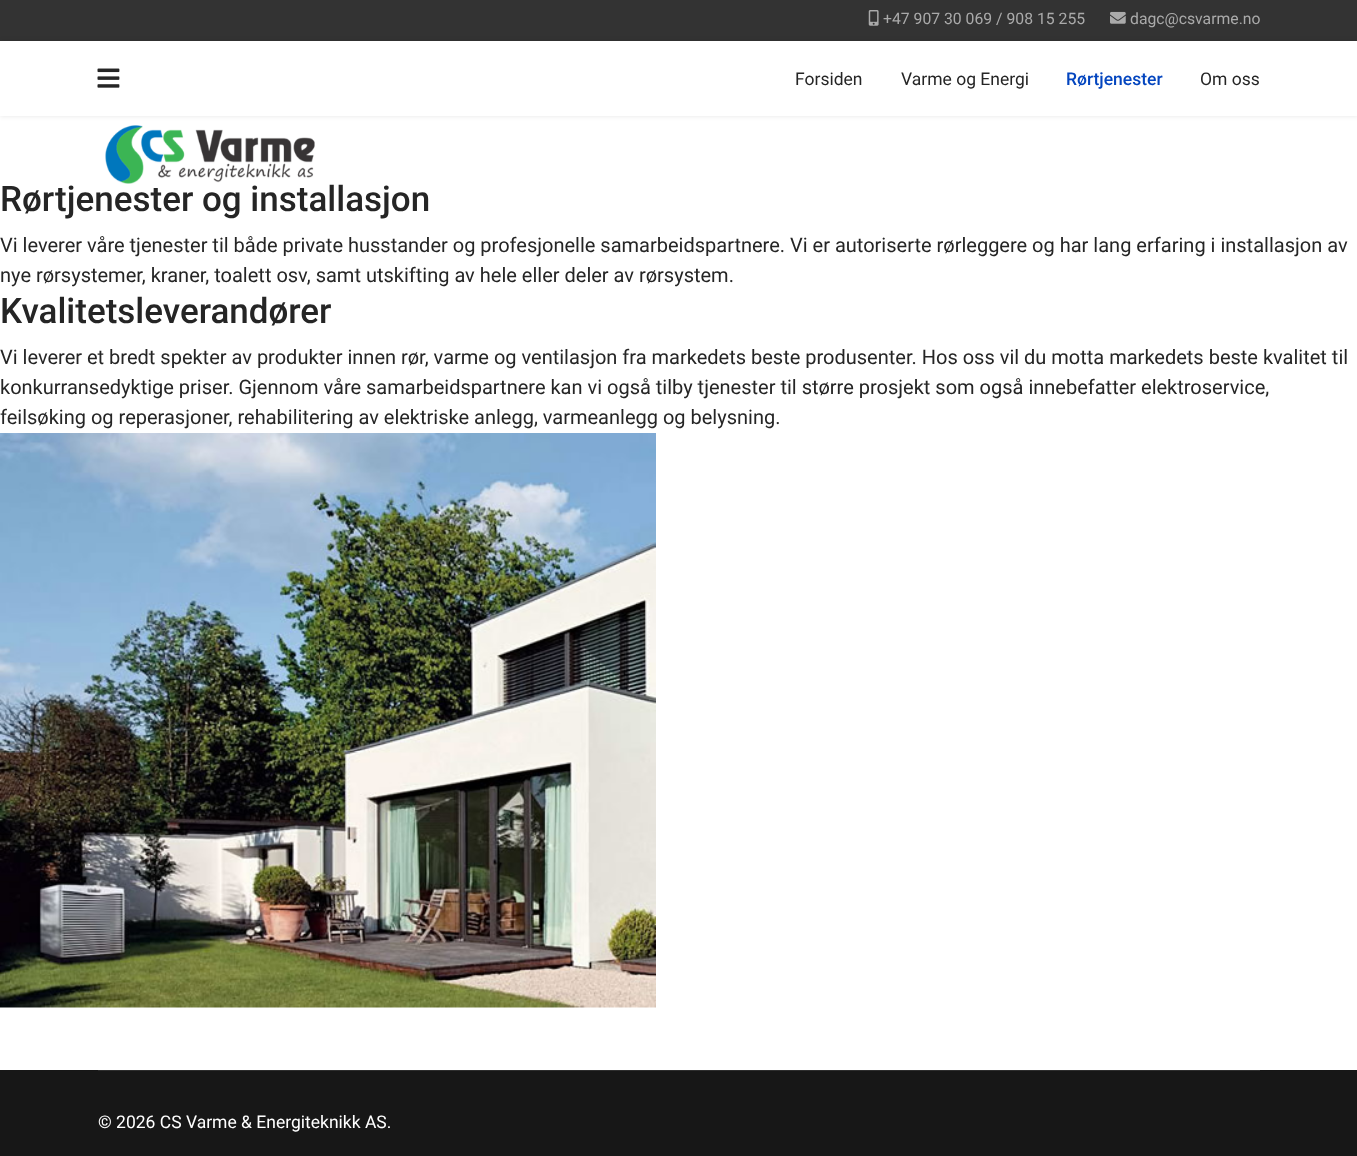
<!DOCTYPE html>
<meta charset="utf-8">
<style>body { margin: 0 } canvas { display: block }</style>
<canvas id="canvas" width="1357" height="1156"></canvas>
<img id="img1" src="images/1.png" hidden>
<img id="img2" src="images/2.png" hidden>
<img id="img3" src="images/3.png" hidden>
<img id="img4" src="images/4.png" hidden>
<img id="img5" src="images/5.png" hidden>
<script>
window.onload = function () {
    const canvas = document.getElementById('canvas');
    const context = canvas.getContext('2d');
    context.miterLimit = 4;
    context.fontKerning = 'normal';

    context.fillStyle = 'rgb(255, 255, 255)';
    context.fillRect(0, 0, 1357, 1156);
    context.fillStyle = 'rgb(51, 51, 51)';
    context.fillRect(0, 0, 1357, 41);
    context.drawImage(document.getElementById('img1'), 868, 10, 11, 16);
    context.drawImage(document.getElementById('img2'), 1110, 11, 16, 13);
    context.fillStyle = 'rgba(0, 0, 0, 0.1)';
    context.filter = 'blur(2.5px)';
    context.beginPath();
    context.rect(0, 41, 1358, 75);
    context.fill();
    context.filter = 'none';
    context.fillStyle = 'rgb(255, 255, 255)';
    context.fillRect(0, 41, 1357, 75);
    context.drawImage(document.getElementById('img3'), 97, 68, 23, 20);
    context.drawImage(document.getElementById('img4'), 105, 125, 210, 59);
    context.drawImage(document.getElementById('img5'), 0, 433, 656, 575);
    context.fillStyle = 'rgb(23, 23, 23)';
    context.fillRect(0, 1070, 1357, 86);
    context.fillStyle = 'rgb(46, 46, 46)';
    context.fillRect(98, 1070, 1162, 1);
    context.font = '15.75px Roboto';
    context.fillStyle = 'rgb(170, 170, 170)';
    context.fillText('+47 907 30 069 / 908 15 255', 883, 24);
    context.fillText('dagc@csvarme.no', 1130, 24);
    context.font = '17.5px Roboto';
    context.fillStyle = 'rgb(37, 37, 37)';
    context.fillText('Forsiden', 795, 85);
    context.fillText('Varme og Energi', 901, 85);
    context.font = '500 17.5px Roboto';
    context.fillStyle = 'rgb(3, 69, 191)';
    context.fillText('Rørtjenester', 1066, 85);
    context.font = '17.5px Roboto';
    context.fillStyle = 'rgb(37, 37, 37)';
    context.fillText('Om oss', 1200, 85);
    context.font = '500 35px Roboto';
    context.fillText('Rørtjenester og installasjon', 0, 211);
    context.font = '20px Roboto';
    context.fillText('Vi leverer våre tjenester til både private husstander og profesjonelle samarbeidspartnere. Vi er autoriserte rørleggere og har lang erfaring i installasjon av', 0, 252);
    context.fillText('nye rørsystemer, kraner, toalett osv, samt utskifting av hele eller deler av rørsystem.', 0, 282);
    context.font = '500 35px Roboto';
    context.fillText('Kvalitetsleverandører', 0, 323);
    context.font = '20px Roboto';
    context.fillText('Vi leverer et bredt spekter av produkter innen rør, varme og ventilasjon fra markedets beste produsenter. Hos oss vil du motta markedets beste kvalitet til', 0, 364);
    context.fillText('konkurransedyktige priser. Gjennom våre samarbeidspartnere kan vi også tilby tjenester til større prosjekt som også innebefatter elektroservice,', 0, 394);
    context.fillText('feilsøking og reperasjoner, rehabilitering av elektriske anlegg, varmeanlegg og belysning.', 0, 424);
    context.font = '17.5px Roboto';
    context.fillStyle = 'rgb(255, 255, 255)';
    context.fillText('© 2026 CS Varme & Energiteknikk AS.', 98, 1128);
};
</script>
